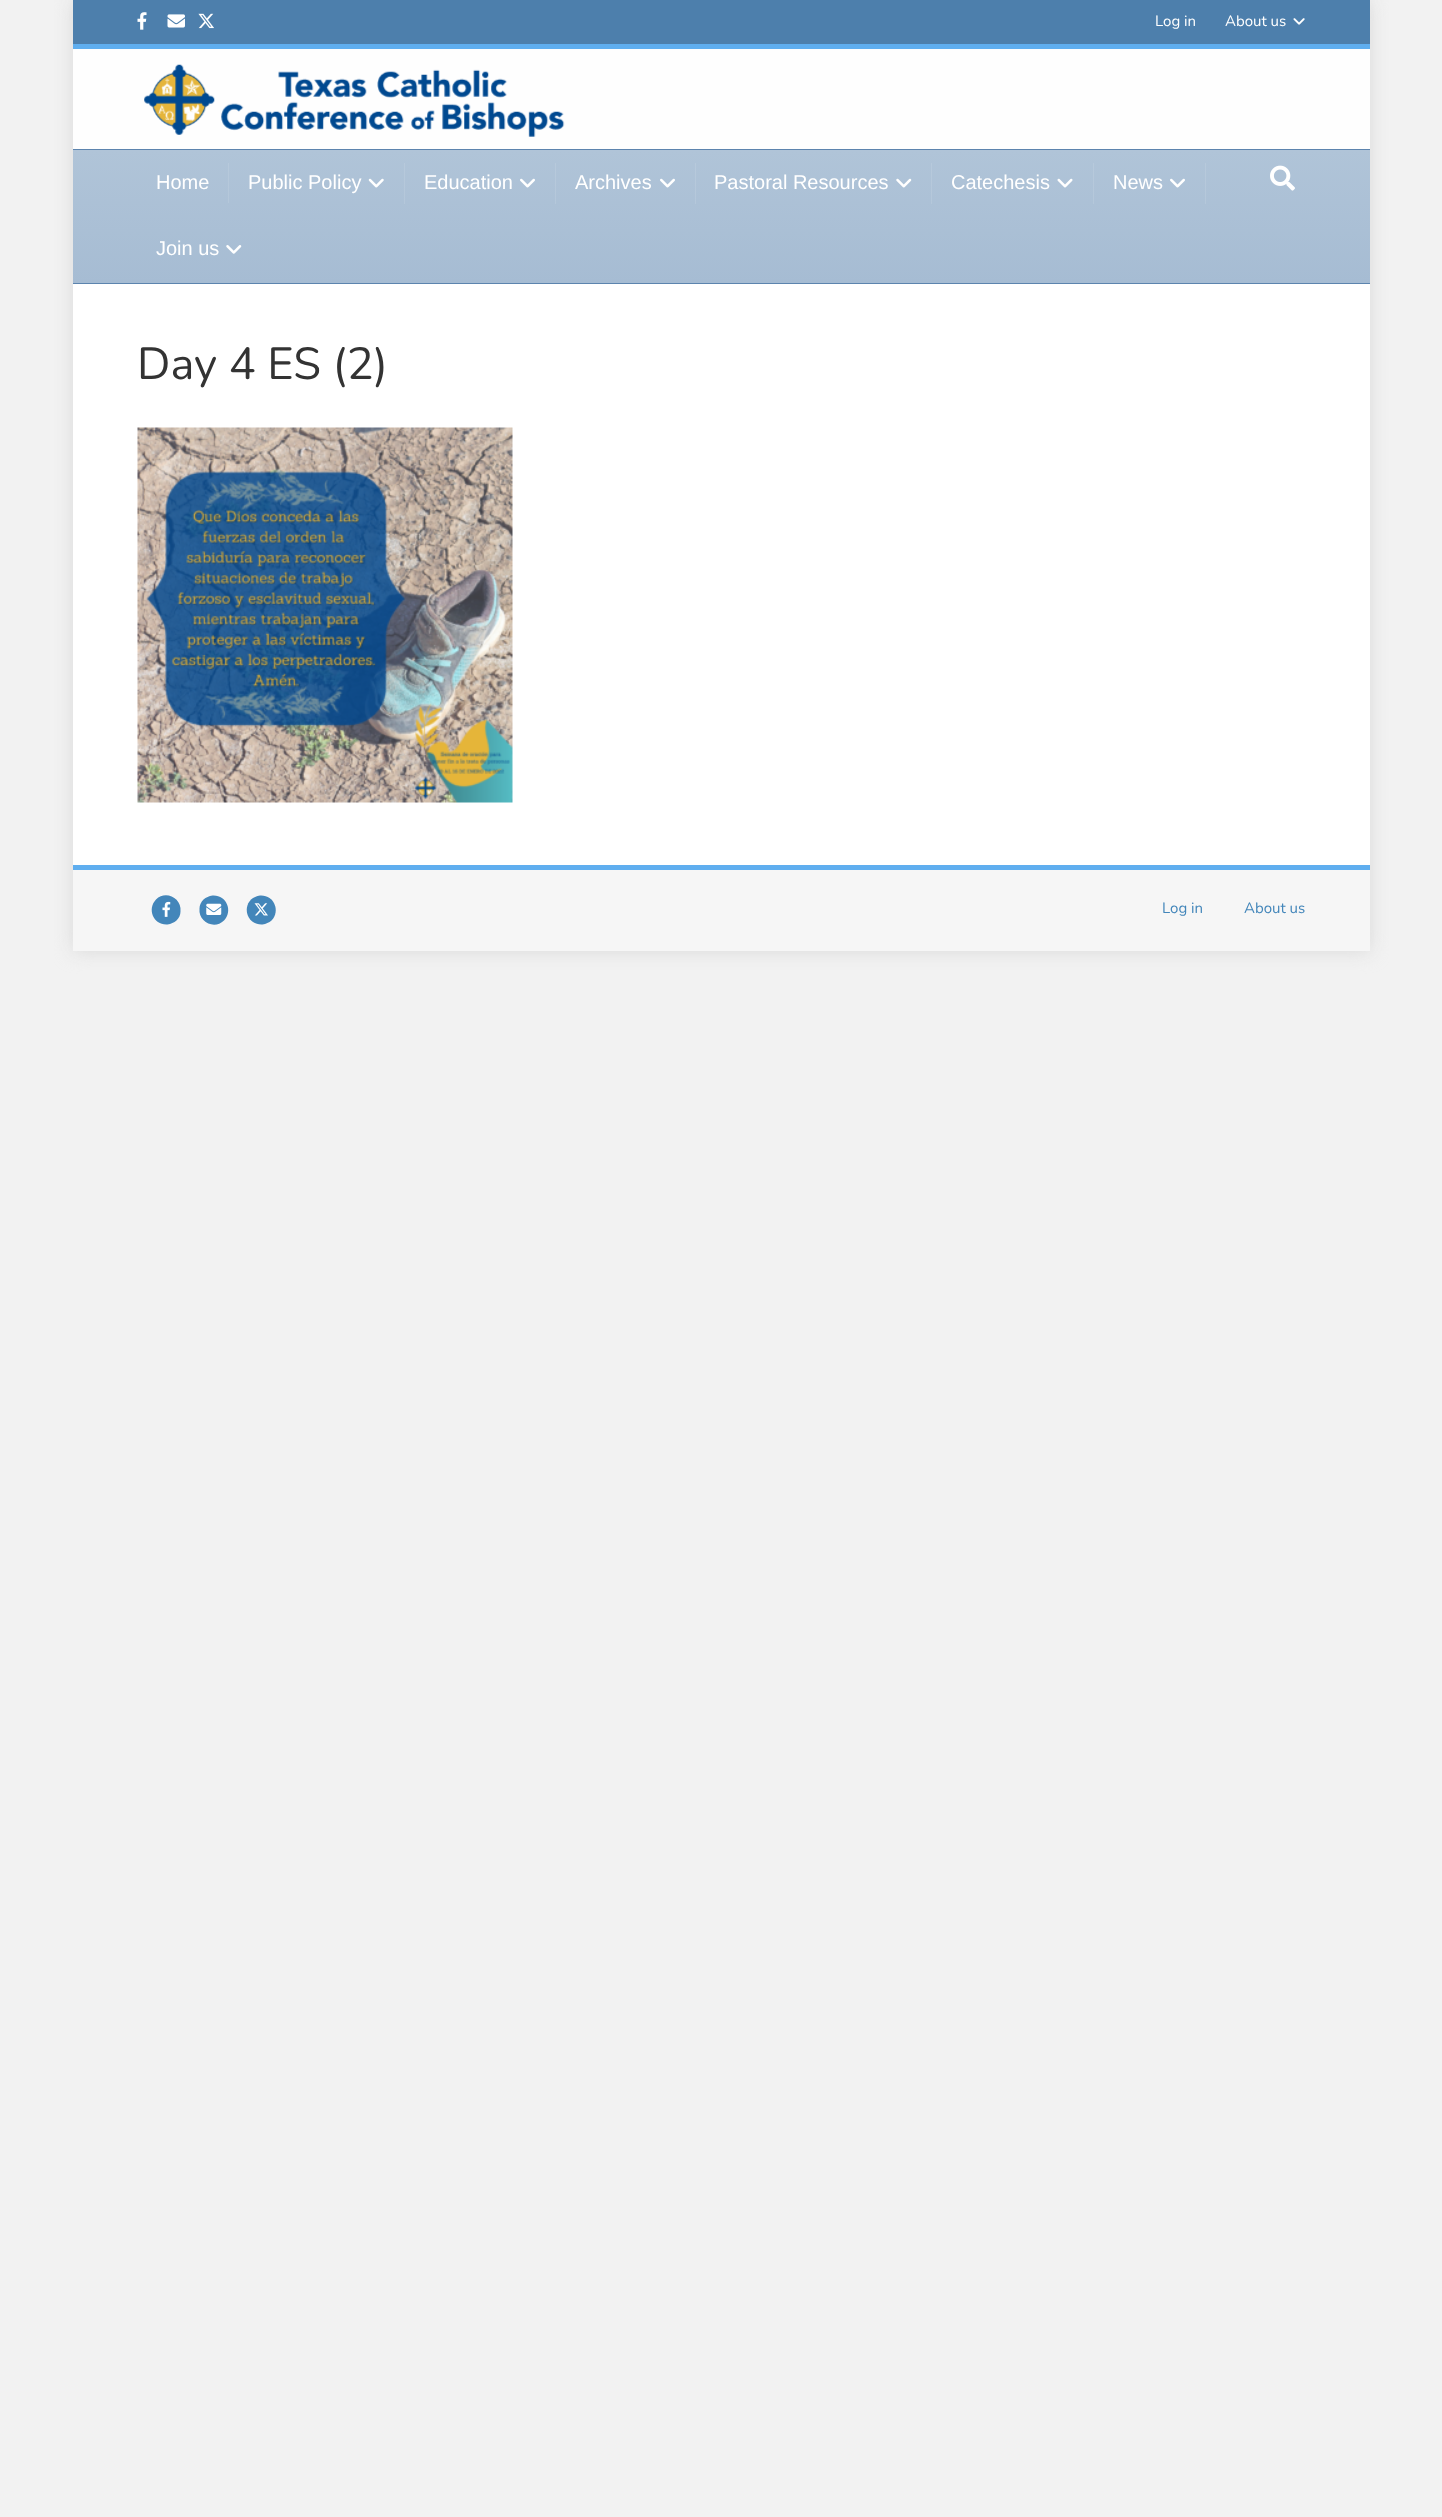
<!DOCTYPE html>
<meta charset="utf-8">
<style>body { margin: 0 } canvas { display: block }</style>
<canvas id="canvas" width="1442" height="2517"></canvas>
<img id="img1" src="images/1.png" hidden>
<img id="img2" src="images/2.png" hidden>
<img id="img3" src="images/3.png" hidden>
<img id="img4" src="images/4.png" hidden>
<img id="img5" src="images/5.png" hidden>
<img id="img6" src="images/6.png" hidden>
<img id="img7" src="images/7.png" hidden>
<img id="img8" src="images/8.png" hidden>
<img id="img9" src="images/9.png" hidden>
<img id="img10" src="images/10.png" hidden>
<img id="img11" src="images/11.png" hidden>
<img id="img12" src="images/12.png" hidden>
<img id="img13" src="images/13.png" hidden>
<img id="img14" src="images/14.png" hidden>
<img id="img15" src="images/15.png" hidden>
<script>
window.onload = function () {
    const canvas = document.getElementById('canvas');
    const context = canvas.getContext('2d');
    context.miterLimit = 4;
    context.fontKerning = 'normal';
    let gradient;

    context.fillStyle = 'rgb(242, 242, 242)';
    context.fillRect(0, 0, 1442, 2517);
    context.fillStyle = 'rgb(217, 217, 217)';
    context.filter = 'blur(9.5px)';
    context.beginPath();
    context.rect(73, 0, 1297, 951);
    context.fill();
    context.filter = 'none';
    context.fillStyle = 'rgb(77, 127, 172)';
    context.fillRect(73, 0, 1297, 44);
    context.fillStyle = 'rgb(95, 174, 239)';
    context.fillRect(73, 44, 1297, 5);
    context.drawImage(document.getElementById('img1'), 137, 12, 10, 18);
    context.drawImage(document.getElementById('img2'), 167, 14, 18, 14);
    context.drawImage(document.getElementById('img3'), 198, 13, 16, 16);
    context.drawImage(document.getElementById('img4'), 1293, 18, 12, 7);
    context.fillStyle = 'rgb(254, 254, 254)';
    context.fillRect(73, 49, 1297, 100);
    context.drawImage(document.getElementById('img5'), 144, 64, 421, 73);
    gradient = context.createLinearGradient(721, 150, 721, 283);
    gradient.addColorStop(0, 'rgb(176, 196, 216)');
    gradient.addColorStop(1, 'rgb(166, 188, 211)');
    context.fillStyle = gradient;
    context.fillRect(73, 150, 1297, 133);
    gradient = context.createLinearGradient(721, 150, 721, 283);
    gradient.addColorStop(0, 'rgb(184, 202, 220)');
    gradient.addColorStop(1, 'rgb(175, 195, 215)');
    context.fillStyle = gradient;
    context.fillRect(1205, 163, 1, 41);
    context.fillRect(1093, 163, 1, 41);
    context.fillRect(931, 163, 1, 41);
    context.fillRect(695, 163, 1, 41);
    context.fillRect(555, 163, 1, 41);
    context.fillRect(404, 163, 1, 41);
    context.fillRect(228, 163, 1, 40);
    context.fillStyle = 'rgb(92, 132, 174)';
    context.fillRect(73, 149, 1297, 1);
    context.fillRect(73, 283, 1297, 1);
    context.drawImage(document.getElementById('img6'), 368, 178, 16, 10);
    context.drawImage(document.getElementById('img7'), 520, 178, 15, 10);
    context.drawImage(document.getElementById('img7'), 660, 178, 15, 10);
    context.drawImage(document.getElementById('img8'), 896, 178, 16, 10);
    context.drawImage(document.getElementById('img9'), 1057, 178, 16, 10);
    context.drawImage(document.getElementById('img7'), 1170, 178, 15, 10);
    context.drawImage(document.getElementById('img10'), 226, 245, 16, 9);
    context.drawImage(document.getElementById('img11'), 1270, 165, 25, 26);
    context.fillStyle = 'rgb(255, 255, 255)';
    context.fillRect(73, 284, 1297, 581);
    context.drawImage(document.getElementById('img12'), 137, 427, 376, 376);
    context.fillStyle = 'rgb(246, 246, 246)';
    context.fillRect(73, 870, 1297, 81);
    context.fillStyle = 'rgb(95, 174, 239)';
    context.fillRect(73, 865, 1297, 5);
    context.fillStyle = 'rgb(67, 134, 186)';
    context.beginPath();
    context.moveTo(156, 899.5);
    context.bezierCurveTo(165.5, 890, 182, 898, 180.5, 911.5);
    context.bezierCurveTo(180.5, 915, 179, 918, 176.5, 920.5);
    context.bezierCurveTo(174, 922.5, 171, 924, 167.5, 924.5);
    context.bezierCurveTo(154, 925.5, 146.5, 909.5, 156, 899.5);
    context.closePath();
    context.fill();
    context.drawImage(document.getElementById('img13'), 162, 901, 9, 16);
    context.beginPath();
    context.moveTo(203.5, 899.5);
    context.bezierCurveTo(206, 897.5, 209, 896, 212.5, 895.5);
    context.bezierCurveTo(226, 894.5, 233.5, 910.5, 224, 920.5);
    context.bezierCurveTo(214.5, 930, 198, 922, 199.5, 908.5);
    context.bezierCurveTo(199.5, 905, 201, 902, 203.5, 899.5);
    context.closePath();
    context.fill();
    context.drawImage(document.getElementById('img14'), 206, 903, 16, 12);
    context.beginPath();
    context.moveTo(251, 899.5);
    context.bezierCurveTo(253.5, 897.5, 256.5, 896, 260, 895.5);
    context.bezierCurveTo(273.5, 894.5, 281, 910.5, 271.5, 920.5);
    context.bezierCurveTo(269, 922.5, 266, 924, 262.5, 924.5);
    context.bezierCurveTo(249, 925.5, 241.5, 909.5, 251, 899.5);
    context.closePath();
    context.fill();
    context.drawImage(document.getElementById('img15'), 254, 903, 14, 13);
    context.font = '15px Nunito';
    context.fillStyle = 'rgb(255, 255, 255)';
    context.fillText('Log in', 1155, 26);
    context.fillText('About us', 1225, 26);
    context.font = '20px Liberation Sans';
    context.fillText('Home', 156, 189);
    context.fillText('Public Policy', 248, 189);
    context.fillText('Education', 424, 189);
    context.fillText('Archives', 575, 189);
    context.fillText('Pastoral Resources', 714, 189);
    context.fillText('Catechesis', 951, 189);
    context.fillText('News', 1113, 189);
    context.fillText('Join us', 156, 255);
    context.font = '45px Nunito';
    context.fillStyle = 'rgb(51, 51, 51)';
    context.fillText('Day 4 ES (2)', 137, 379);
    context.font = '15px Nunito';
    context.fillStyle = 'rgb(67, 134, 186)';
    context.fillText('Log in', 1162, 913);
    context.fillText('About us', 1244, 913);
};
</script>
